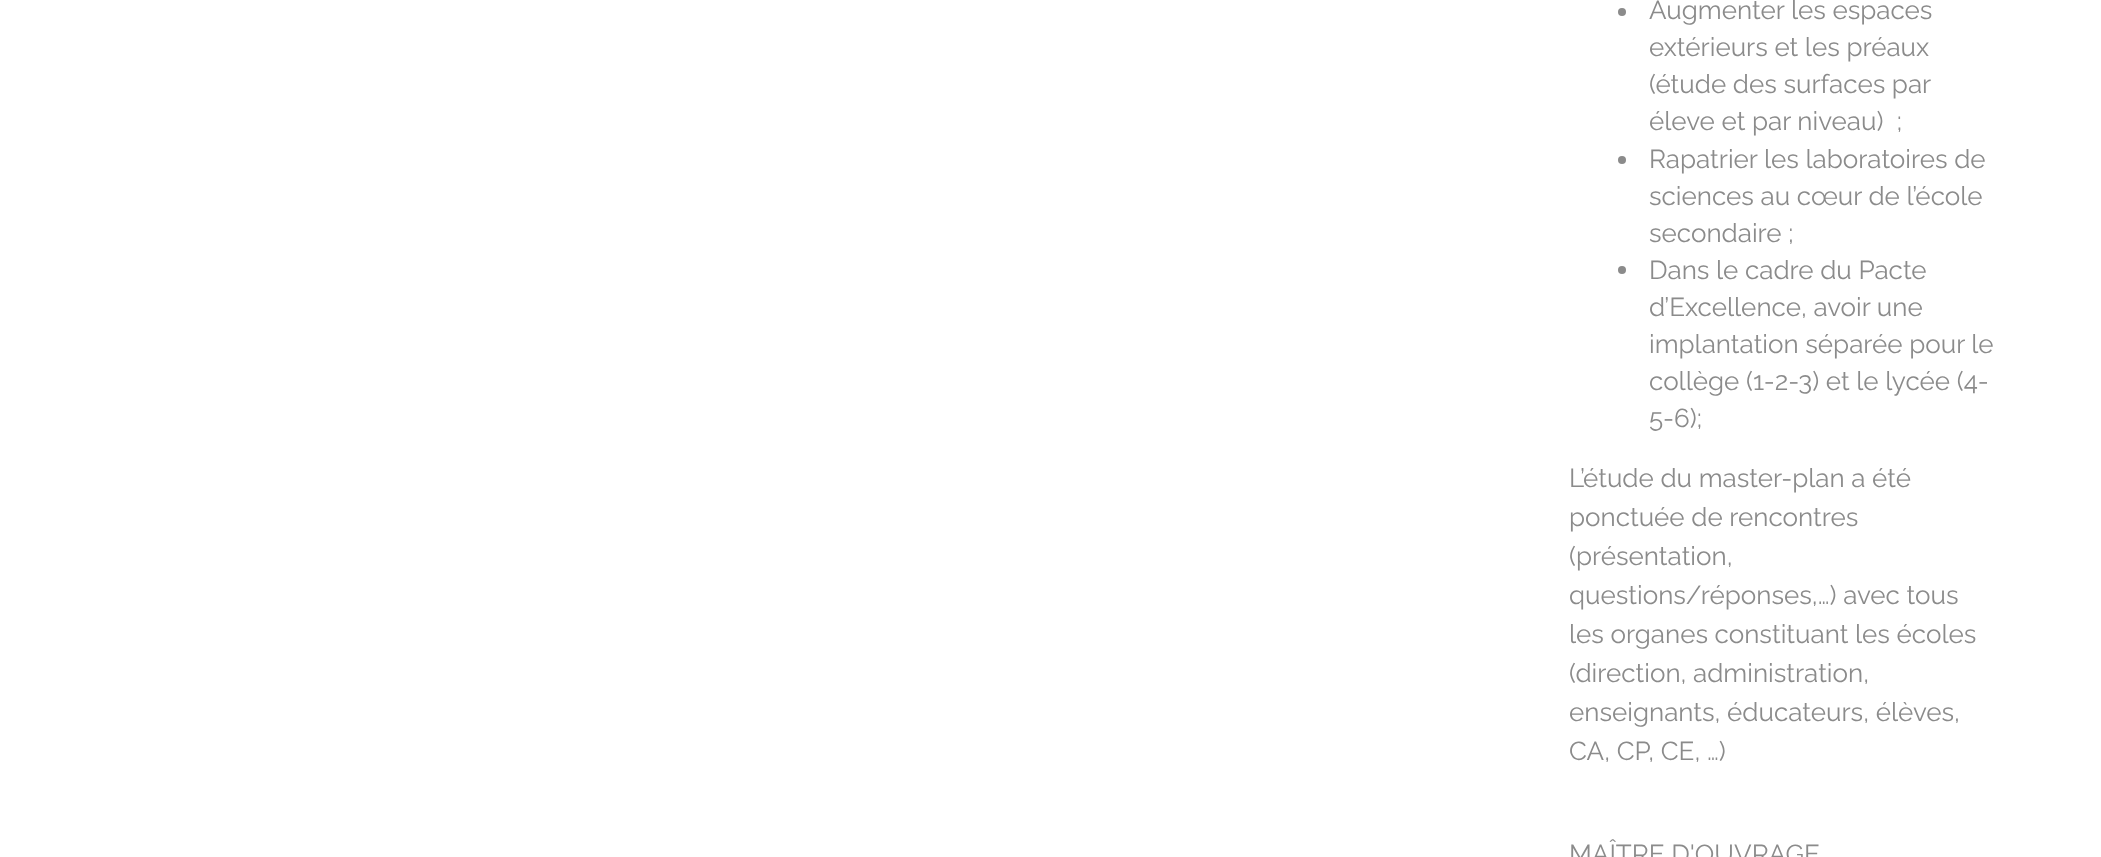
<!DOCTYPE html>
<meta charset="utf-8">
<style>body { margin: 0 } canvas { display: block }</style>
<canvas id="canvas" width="2101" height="857"></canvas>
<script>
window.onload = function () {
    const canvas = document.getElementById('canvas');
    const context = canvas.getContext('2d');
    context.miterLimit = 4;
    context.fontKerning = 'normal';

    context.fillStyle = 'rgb(255, 255, 255)';
    context.fillRect(0, 0, 2101, 857);
    context.fillStyle = 'rgb(139, 139, 139)';
    context.beginPath();
    context.arc(1622, 12, 4, 0, 2 * Math.PI);
    context.fill();
    context.beginPath();
    context.arc(1622, 160, 4, 0, 2 * Math.PI);
    context.fill();
    context.beginPath();
    context.arc(1622, 270, 4, 0, 2 * Math.PI);
    context.fill();
    context.font = '26px Raleway';
    context.fillText('Augmenter les espaces', 1649, 19);
    context.fillText('extérieurs et les préaux', 1649, 56);
    context.fillText('(étude des surfaces par', 1649, 93);
    context.fillText('éleve et par niveau)  ;', 1649, 130);
    context.fillText('Rapatrier les laboratoires de', 1649, 168);
    context.fillText('sciences au cœur de l’école', 1649, 205);
    context.fillText('secondaire ;', 1649, 242);
    context.fillText('Dans le cadre du Pacte', 1649, 279);
    context.fillText('d’Excellence, avoir une', 1649, 316);
    context.fillText('implantation séparée pour le', 1649, 353);
    context.fillText('collège (1-2-3) et le lycée (4-', 1649, 390);
    context.fillText('5-6);', 1649, 427);
    context.fillText('L’étude du master-plan a été', 1569, 487);
    context.fillText('ponctuée de rencontres', 1569, 526);
    context.fillText('(présentation,', 1569, 565);
    context.fillText('questions/réponses,…) avec tous', 1569, 604);
    context.fillText('les organes constituant les écoles', 1569, 643);
    context.fillText('(direction, administration,', 1569, 682);
    context.fillText('enseignants, éducateurs, élèves,', 1569, 721);
    context.fillText('CA, CP, CE, …)', 1569, 760);
    context.fillText('MAÎTRE D\'OUVRAGE', 1569, 863);
};
</script>
